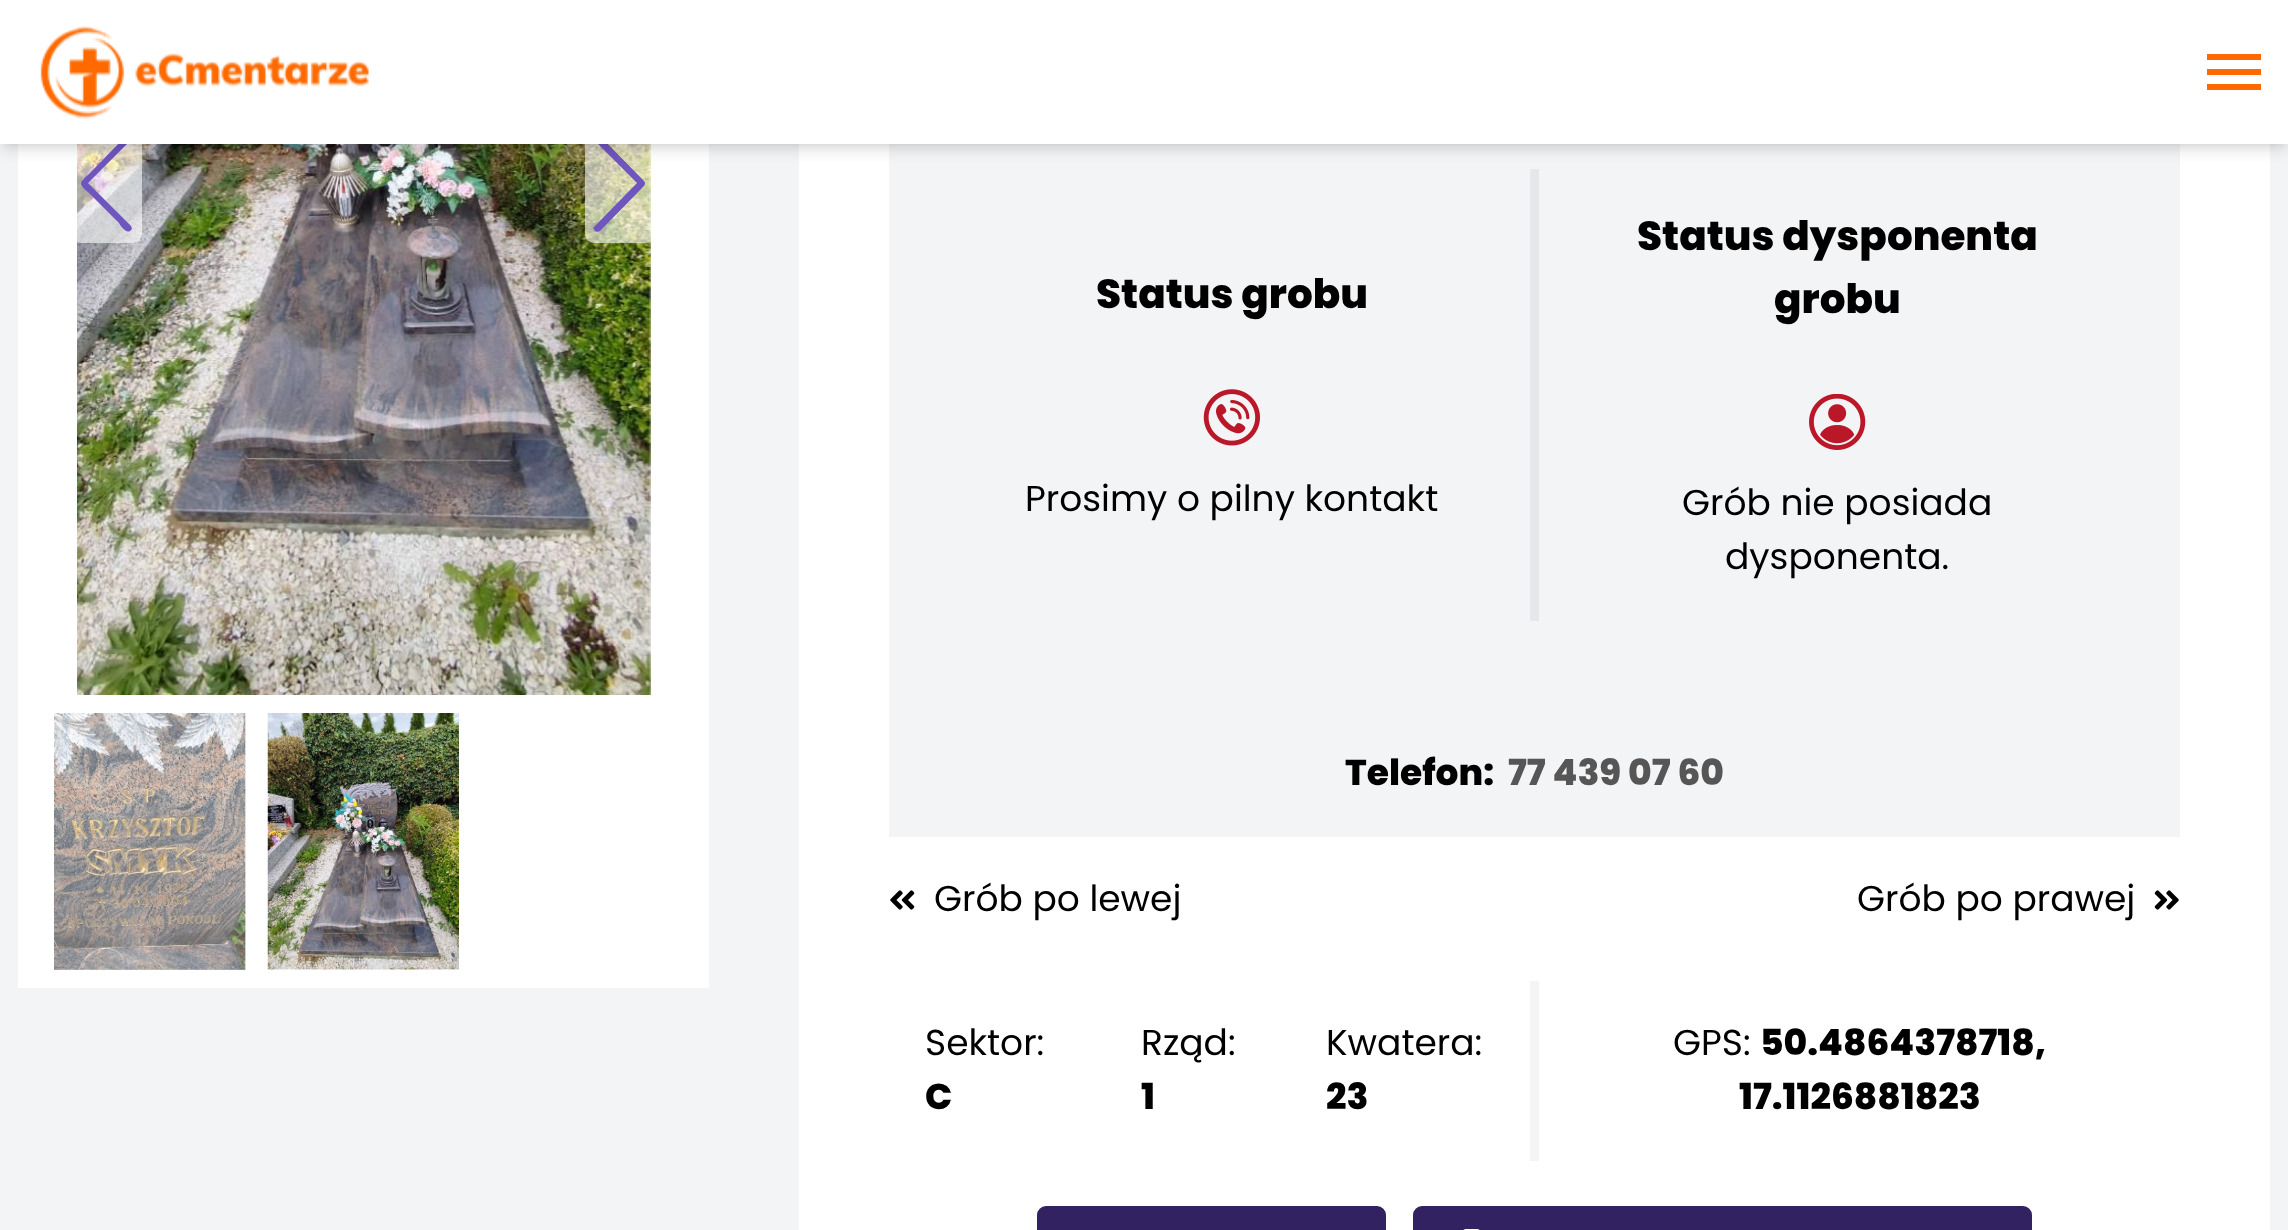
<!DOCTYPE html>
<meta charset="utf-8">
<style>body { margin: 0 } canvas { display: block }</style>
<canvas id="canvas" width="2288" height="1230"></canvas>
<img id="img1" src="images/2.png" hidden>
<img id="img2" src="images/1.png" hidden>
<img id="img3" src="images/3.png" hidden>
<img id="img4" src="images/4.png" hidden>
<img id="img5" src="images/5.png" hidden>
<img id="img6" src="images/6.png" hidden>
<img id="img7" src="images/7.png" hidden>
<img id="img8" src="images/8.png" hidden>
<img id="img9" src="images/9.png" hidden>
<script>
window.onload = function () {
    const canvas = document.getElementById('canvas');
    const context = canvas.getContext('2d');
    context.miterLimit = 4;
    context.fontKerning = 'normal';

    context.fillStyle = 'rgb(243, 244, 246)';
    context.fillRect(0, 0, 2288, 1230);
    context.fillStyle = 'rgb(255, 255, 255)';
    context.fillRect(18, 144, 691, 844);
    context.drawImage(document.getElementById('img1'), 77, 144, 574, 551);
    context.fillStyle = 'rgba(255, 255, 255, 0.6)';
    context.beginPath();
    context.roundRect(72, 126, 70, 117, 9);
    context.fill();
    context.fillStyle = 'rgb(111, 85, 190)';
    context.beginPath();
    context.moveTo(126, 136);
    context.bezierCurveTo(128, 134, 132, 135, 132, 139);
    context.lineTo(131, 140);
    context.lineTo(88, 183);
    context.lineTo(131, 226);
    context.lineTo(132, 229);
    context.lineTo(130, 231);
    context.bezierCurveTo(126, 234, 119, 224, 119, 223);
    context.lineTo(90, 194);
    context.bezierCurveTo(78, 183, 78, 184, 90, 173);
    context.closePath();
    context.fill();
    context.fillStyle = 'rgba(255, 255, 255, 0.6)';
    context.beginPath();
    context.roundRect(585, 126, 70, 117, 9);
    context.fill();
    context.fillStyle = 'rgb(111, 85, 190)';
    context.beginPath();
    context.moveTo(595, 231);
    context.bezierCurveTo(593, 229, 593, 227, 595, 226);
    context.lineTo(637, 183);
    context.lineTo(595, 141);
    context.bezierCurveTo(593, 139, 593, 138, 595, 136);
    context.bezierCurveTo(597, 135, 598, 135, 600, 136);
    context.lineTo(643, 180);
    context.bezierCurveTo(644, 181, 645, 182, 645, 183);
    context.bezierCurveTo(645, 185, 644, 186, 643, 187);
    context.lineTo(600, 231);
    context.bezierCurveTo(598, 232, 597, 232, 595, 231);
    context.closePath();
    context.fill();
    context.fillStyle = 'rgb(255, 255, 255)';
    context.fillRect(799, 144, 1471, 1086);
    context.fillStyle = 'rgb(243, 244, 246)';
    context.fillRect(889, 144, 1291, 693);
    context.fillStyle = 'rgba(0, 0, 0, 0.1)';
    context.filter = 'blur(4.5px)';
    context.beginPath();
    context.rect(5, 9, 2279, 135);
    context.fill();
    context.filter = 'none';
    context.fillStyle = 'rgb(229, 231, 235)';
    context.fillRect(1530, 169, 9, 452);
    context.fillStyle = 'rgba(0, 0, 0, 0.1)';
    context.filter = 'blur(7px)';
    context.beginPath();
    context.rect(2, 11, 2284, 140);
    context.fill();
    context.filter = 'none';
    context.fillStyle = 'rgb(255, 255, 255)';
    context.fillRect(0, 0, 2288, 144);
    context.drawImage(document.getElementById('img2'), 40, 26, 329, 93);
    context.fillStyle = 'rgb(255, 105, 0)';
    context.beginPath();
    context.moveTo(2207, 90);
    context.lineTo(2261, 90);
    context.lineTo(2261, 84);
    context.lineTo(2207, 84);
    context.closePath();
    context.moveTo(2207, 75);
    context.lineTo(2261, 75);
    context.lineTo(2261, 69);
    context.lineTo(2207, 69);
    context.closePath();
    context.moveTo(2207, 54);
    context.lineTo(2207, 60);
    context.lineTo(2261, 60);
    context.lineTo(2261, 54);
    context.closePath();
    context.fill();
    context.drawImage(document.getElementById('img3'), 54, 713, 192, 257);
    context.drawImage(document.getElementById('img4'), 267, 713, 192, 257);
    context.drawImage(document.getElementById('img5'), 1203, 389, 57, 57);
    context.drawImage(document.getElementById('img6'), 1809, 394, 57, 56);
    context.drawImage(document.getElementById('img7'), 890, 890, 25, 20);
    context.drawImage(document.getElementById('img8'), 2154, 890, 25, 20);
    context.fillStyle = 'rgb(243, 244, 246)';
    context.fillRect(1530, 981, 9, 180);
    context.fillStyle = 'rgb(50, 34, 98)';
    context.beginPath();
    context.roundRect(1039.5, 1208.5, 344, 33, 6.5);
    context.fill();
    context.strokeStyle = 'rgb(50, 34, 98)';
    context.lineWidth = 5;
    context.stroke();
    context.beginPath();
    context.roundRect(1415.5, 1208.5, 614, 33, 6.5);
    context.fill();
    context.stroke();
    context.drawImage(document.getElementById('img9'), 1463, 1229, 17, 1);
    context.font = '800 40.5px Poppins';
    context.fillStyle = 'rgb(0, 0, 0)';
    context.fillText('Status grobu', 1096, 308);
    context.font = '36px Poppins';
    context.fillText('Prosimy o pilny kontakt', 1025, 511);
    context.font = '800 40.5px Poppins';
    context.fillText('Status dysponenta', 1637, 250);
    context.fillText('grobu', 1774, 313);
    context.font = '36px Poppins';
    context.fillText('Grób nie posiada', 1682, 515);
    context.fillText('dysponenta.', 1725, 569);
    context.font = '800 36px Poppins';
    context.fillText('Telefon:', 1345, 785);
    context.fillStyle = 'rgb(86, 86, 86)';
    context.fillText('77 439 07 60', 1508, 785);
    context.font = '36px Poppins';
    context.fillStyle = 'rgb(0, 0, 0)';
    context.fillText('Grób po lewej', 934, 911);
    context.fillText('Grób po prawej', 1857, 911);
    context.fillText('Sektor:', 925, 1055);
    context.font = '800 36px Poppins';
    context.fillText('C', 925, 1109);
    context.font = '36px Poppins';
    context.fillText('Rząd:', 1141, 1055);
    context.font = '800 36px Poppins';
    context.fillText('1', 1141, 1109);
    context.font = '36px Poppins';
    context.fillText('Kwatera:', 1326, 1055);
    context.font = '800 36px Poppins';
    context.fillText('23', 1326, 1109);
    context.font = '36px Poppins';
    context.fillText('GPS:', 1673, 1055);
    context.font = '800 36px Poppins';
    context.fillText('50.4864378718,', 1760, 1055);
    context.fillText('17.1126881823', 1739, 1109);
};
</script>
